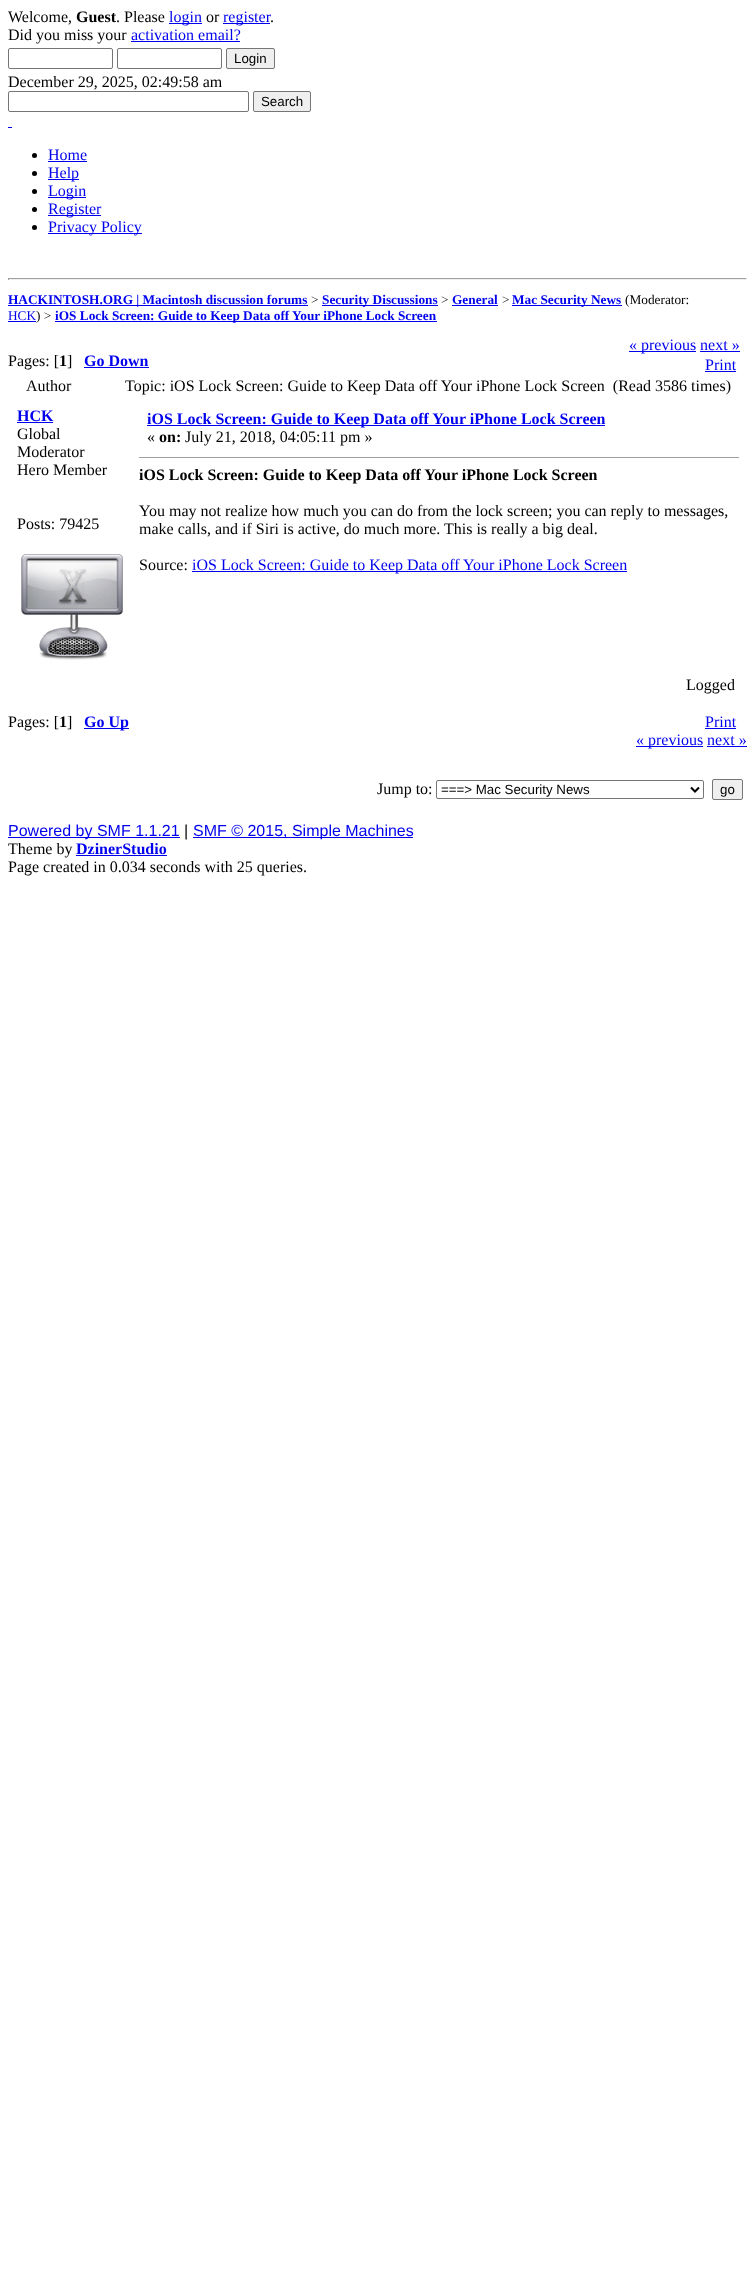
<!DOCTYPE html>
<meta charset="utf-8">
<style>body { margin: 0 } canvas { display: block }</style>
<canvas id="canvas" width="755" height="2296"></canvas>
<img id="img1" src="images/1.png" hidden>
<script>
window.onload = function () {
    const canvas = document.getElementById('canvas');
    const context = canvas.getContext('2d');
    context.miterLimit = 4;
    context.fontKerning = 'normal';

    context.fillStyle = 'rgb(255, 255, 255)';
    context.fillRect(0, 0, 755, 2296);
    context.fillStyle = 'rgb(0, 0, 238)';
    context.fillRect(169, 23, 33, 1);
    context.fillRect(223, 23, 47, 1);
    context.fillRect(131, 41, 109, 1);
    context.beginPath();
    context.roundRect(8.5, 48.5, 104, 20, 1.5);
    context.strokeStyle = 'rgb(118, 118, 118)';
    context.stroke();
    context.beginPath();
    context.roundRect(117.5, 48.5, 104, 20, 1.5);
    context.stroke();
    context.fillStyle = 'rgb(239, 239, 239)';
    context.beginPath();
    context.roundRect(226.5, 48.5, 48, 20, 1.5);
    context.fill();
    context.stroke();
    context.beginPath();
    context.roundRect(8.5, 91.5, 240, 20, 1.5);
    context.stroke();
    context.beginPath();
    context.roundRect(253.5, 91.5, 57, 20, 1.5);
    context.fill();
    context.stroke();
    context.fillStyle = 'rgb(0, 0, 238)';
    context.fillRect(8, 127, 4, 1);
    context.fillStyle = 'rgb(0, 0, 0)';
    context.beginPath();
    context.arc(34.5, 155.5, 2.5, 0, 2 * Math.PI);
    context.fill();
    context.fillStyle = 'rgb(0, 0, 238)';
    context.fillRect(48, 161, 39, 1);
    context.fillStyle = 'rgb(0, 0, 0)';
    context.beginPath();
    context.arc(34.5, 173.5, 2.5, 0, 2 * Math.PI);
    context.fill();
    context.fillStyle = 'rgb(0, 0, 238)';
    context.fillRect(48, 179, 31, 1);
    context.fillStyle = 'rgb(0, 0, 0)';
    context.beginPath();
    context.arc(34.5, 191.5, 2.5, 0, 2 * Math.PI);
    context.fill();
    context.fillStyle = 'rgb(0, 0, 238)';
    context.fillRect(48, 197, 38, 1);
    context.fillStyle = 'rgb(0, 0, 0)';
    context.beginPath();
    context.arc(34.5, 209.5, 2.5, 0, 2 * Math.PI);
    context.fill();
    context.fillStyle = 'rgb(0, 0, 238)';
    context.fillRect(48, 215, 53, 1);
    context.fillStyle = 'rgb(0, 0, 0)';
    context.beginPath();
    context.arc(34.5, 227.5, 2.5, 0, 2 * Math.PI);
    context.fill();
    context.fillStyle = 'rgb(0, 0, 238)';
    context.fillRect(48, 233, 94, 1);
    context.fillStyle = 'rgb(159, 159, 159)';
    context.fillRect(8, 278, 739, 1);
    context.fillStyle = 'rgb(238, 238, 238)';
    context.fillRect(746, 278, 1, 2);
    context.fillRect(8, 279, 739, 1);
    context.fillStyle = 'rgb(159, 159, 159)';
    context.fillRect(8, 278, 1, 2);
    context.fillStyle = 'rgb(0, 0, 238)';
    context.fillRect(8, 305, 300, 1);
    context.fillRect(322, 305, 116, 1);
    context.fillRect(452, 305, 46, 1);
    context.fillRect(512, 305, 110, 1);
    context.fillRect(8, 321, 28, 1);
    context.fillRect(55, 321, 382, 1);
    context.fillRect(84, 367, 65, 1);
    context.fillRect(629, 351, 67, 1);
    context.fillRect(700, 351, 40, 1);
    context.fillRect(705, 371, 31, 1);
    context.fillRect(17, 422, 36, 1);
    context.drawImage(document.getElementById('img1'), 21, 554, 102, 106);
    context.fillRect(147, 425, 458, 1);
    context.fillStyle = 'rgb(159, 159, 159)';
    context.fillRect(139, 457, 601, 1);
    context.fillStyle = 'rgb(238, 238, 238)';
    context.fillRect(739, 457, 1, 1);
    context.fillStyle = 'rgb(0, 0, 238)';
    context.fillRect(192, 571, 435, 1);
    context.fillRect(84, 728, 45, 1);
    context.fillRect(705, 728, 31, 1);
    context.fillRect(636, 746, 67, 1);
    context.fillRect(707, 746, 40, 1);
    context.beginPath();
    context.roundRect(436.5, 780.5, 267, 18, 1.5);
    context.stroke();
    context.beginPath();
    context.moveTo(691, 787.5);
    context.lineTo(695, 791.5);
    context.lineTo(699, 787.5);
    context.strokeStyle = 'rgb(0, 0, 0)';
    context.lineWidth = 2;
    context.stroke();
    context.fillStyle = 'rgb(239, 239, 239)';
    context.beginPath();
    context.roundRect(712.5, 779.5, 30, 20, 1.5);
    context.fill();
    context.strokeStyle = 'rgb(118, 118, 118)';
    context.lineWidth = 1;
    context.stroke();
    context.fillStyle = 'rgb(0, 0, 238)';
    context.fillRect(8, 837, 172, 1);
    context.fillRect(193, 837, 220, 1);
    context.fillRect(76, 855, 91, 1);
    context.font = '16px Liberation Serif';
    context.fillStyle = 'rgb(0, 0, 0)';
    context.fillText('Welcome,', 8, 22);
    context.font = 'bold 16px Liberation Serif';
    context.fillText('Guest', 76, 22);
    context.font = '16px Liberation Serif';
    context.fillText('. Please', 116, 22);
    context.fillStyle = 'rgb(0, 0, 238)';
    context.fillText('login', 169, 22);
    context.fillStyle = 'rgb(0, 0, 0)';
    context.fillText('or', 206, 22);
    context.fillStyle = 'rgb(0, 0, 238)';
    context.fillText('register', 223, 22);
    context.fillStyle = 'rgb(0, 0, 0)';
    context.fillText('.', 270, 22);
    context.fillText('Did you miss your', 8, 40);
    context.fillStyle = 'rgb(0, 0, 238)';
    context.fillText('activation email?', 131, 40);
    context.font = '13.3px Liberation Sans';
    context.fillStyle = 'rgb(0, 0, 0)';
    context.fillText('Login', 234, 63);
    context.font = '16px Liberation Serif';
    context.fillText('December 29, 2025, 02:49:58 am', 8, 87);
    context.font = '13.3px Liberation Sans';
    context.fillText('Search', 261, 106);
    context.font = '16px Liberation Serif';
    context.fillStyle = 'rgb(0, 0, 238)';
    context.fillText('Home', 48, 160);
    context.fillText('Help', 48, 178);
    context.fillText('Login', 48, 196);
    context.fillText('Register', 48, 214);
    context.fillText('Privacy Policy', 48, 232);
    context.font = 'bold 13.3px Liberation Serif';
    context.fillText('HACKINTOSH.ORG | Macintosh discussion forums', 8, 304);
    context.font = '13.3px Liberation Serif';
    context.fillStyle = 'rgb(0, 0, 0)';
    context.fillText('>', 311, 304);
    context.font = 'bold 13.3px Liberation Serif';
    context.fillStyle = 'rgb(0, 0, 238)';
    context.fillText('Security Discussions', 322, 304);
    context.font = '13.3px Liberation Serif';
    context.fillStyle = 'rgb(0, 0, 0)';
    context.fillText('>', 441, 304);
    context.font = 'bold 13.3px Liberation Serif';
    context.fillStyle = 'rgb(0, 0, 238)';
    context.fillText('General', 452, 304);
    context.font = '13.3px Liberation Serif';
    context.fillStyle = 'rgb(0, 0, 0)';
    context.fillText('>', 502, 304);
    context.font = 'bold 13.3px Liberation Serif';
    context.fillStyle = 'rgb(0, 0, 238)';
    context.fillText('Mac Security News', 512, 304);
    context.font = '13.3px Liberation Serif';
    context.fillStyle = 'rgb(0, 0, 0)';
    context.fillText('(Moderator:', 625, 304);
    context.fillStyle = 'rgb(0, 0, 238)';
    context.fillText('HCK', 8, 320);
    context.fillStyle = 'rgb(0, 0, 0)';
    context.fillText(') >', 36, 320);
    context.font = 'bold 13.3px Liberation Serif';
    context.fillStyle = 'rgb(0, 0, 238)';
    context.fillText('iOS Lock Screen: Guide to Keep Data off Your iPhone Lock Screen', 55, 320);
    context.font = '16px Liberation Serif';
    context.fillStyle = 'rgb(0, 0, 0)';
    context.fillText('Pages: [', 8, 366);
    context.font = 'bold 16px Liberation Serif';
    context.fillText('1', 59, 366);
    context.font = '16px Liberation Serif';
    context.fillText(']', 67, 366);
    context.font = 'bold 16px Liberation Serif';
    context.fillStyle = 'rgb(0, 0, 238)';
    context.fillText('Go Down', 84, 366);
    context.font = '16px Liberation Serif';
    context.fillText('« previous next »', 629, 350);
    context.fillText('Print', 705, 370);
    context.fillStyle = 'rgb(0, 0, 0)';
    context.fillText('Author', 26, 391);
    context.fillText('Topic: iOS Lock Screen: Guide to Keep Data off Your iPhone Lock Screen  (Read 3586 times)', 125, 391);
    context.font = 'bold 16px Liberation Serif';
    context.fillStyle = 'rgb(0, 0, 238)';
    context.fillText('HCK', 17, 421);
    context.font = '16px Liberation Serif';
    context.fillStyle = 'rgb(0, 0, 0)';
    context.fillText('Global', 17, 439);
    context.fillText('Moderator', 17, 457);
    context.fillText('Hero Member', 17, 475);
    context.fillText('Posts: 79425', 17, 529);
    context.font = 'bold 16px Liberation Serif';
    context.fillStyle = 'rgb(0, 0, 238)';
    context.fillText('iOS Lock Screen: Guide to Keep Data off Your iPhone Lock Screen', 147, 424);
    context.font = '16px Liberation Serif';
    context.fillStyle = 'rgb(0, 0, 0)';
    context.fillText('«', 147, 442);
    context.font = 'bold 16px Liberation Serif';
    context.fillText('on:', 159, 442);
    context.font = '16px Liberation Serif';
    context.fillText('July 21, 2018, 04:05:11 pm »', 185, 442);
    context.font = 'bold 16px Liberation Serif';
    context.fillText('iOS Lock Screen: Guide to Keep Data off Your iPhone Lock Screen', 139, 480);
    context.font = '16px Liberation Serif';
    context.fillText('You may not realize how much you can do from the lock screen; you can reply to messages,', 139, 516);
    context.fillText('make calls, and if Siri is active, do much more. This is really a big deal.', 139, 534);
    context.fillText('Source:', 139, 570);
    context.fillStyle = 'rgb(0, 0, 238)';
    context.fillText('iOS Lock Screen: Guide to Keep Data off Your iPhone Lock Screen', 192, 570);
    context.fillStyle = 'rgb(0, 0, 0)';
    context.fillText('Logged', 686, 690);
    context.fillText('Pages: [', 8, 727);
    context.font = 'bold 16px Liberation Serif';
    context.fillText('1', 59, 727);
    context.font = '16px Liberation Serif';
    context.fillText(']', 67, 727);
    context.font = 'bold 16px Liberation Serif';
    context.fillStyle = 'rgb(0, 0, 238)';
    context.fillText('Go Up', 84, 727);
    context.font = '16px Liberation Serif';
    context.fillText('Print', 705, 727);
    context.fillText('« previous next »', 636, 745);
    context.fillStyle = 'rgb(0, 0, 0)';
    context.fillText('Jump to:', 377, 794);
    context.font = '13.3px Liberation Sans';
    context.fillText('===> Mac Security News', 441, 794);
    context.fillText('go', 720, 794);
    context.font = '16px Liberation Sans';
    context.fillStyle = 'rgb(0, 0, 238)';
    context.fillText('Powered by SMF 1.1.21', 8, 836);
    context.fillStyle = 'rgb(0, 0, 0)';
    context.fillText('|', 184, 836);
    context.fillStyle = 'rgb(0, 0, 238)';
    context.fillText('SMF © 2015, Simple Machines', 193, 836);
    context.font = '16px Liberation Serif';
    context.fillStyle = 'rgb(0, 0, 0)';
    context.fillText('Theme by', 8, 854);
    context.font = 'bold 16px Liberation Serif';
    context.fillStyle = 'rgb(0, 0, 238)';
    context.fillText('DzinerStudio', 76, 854);
    context.font = '16px Liberation Serif';
    context.fillStyle = 'rgb(0, 0, 0)';
    context.fillText('Page created in 0.034 seconds with 25 queries.', 8, 872);
};
</script>
